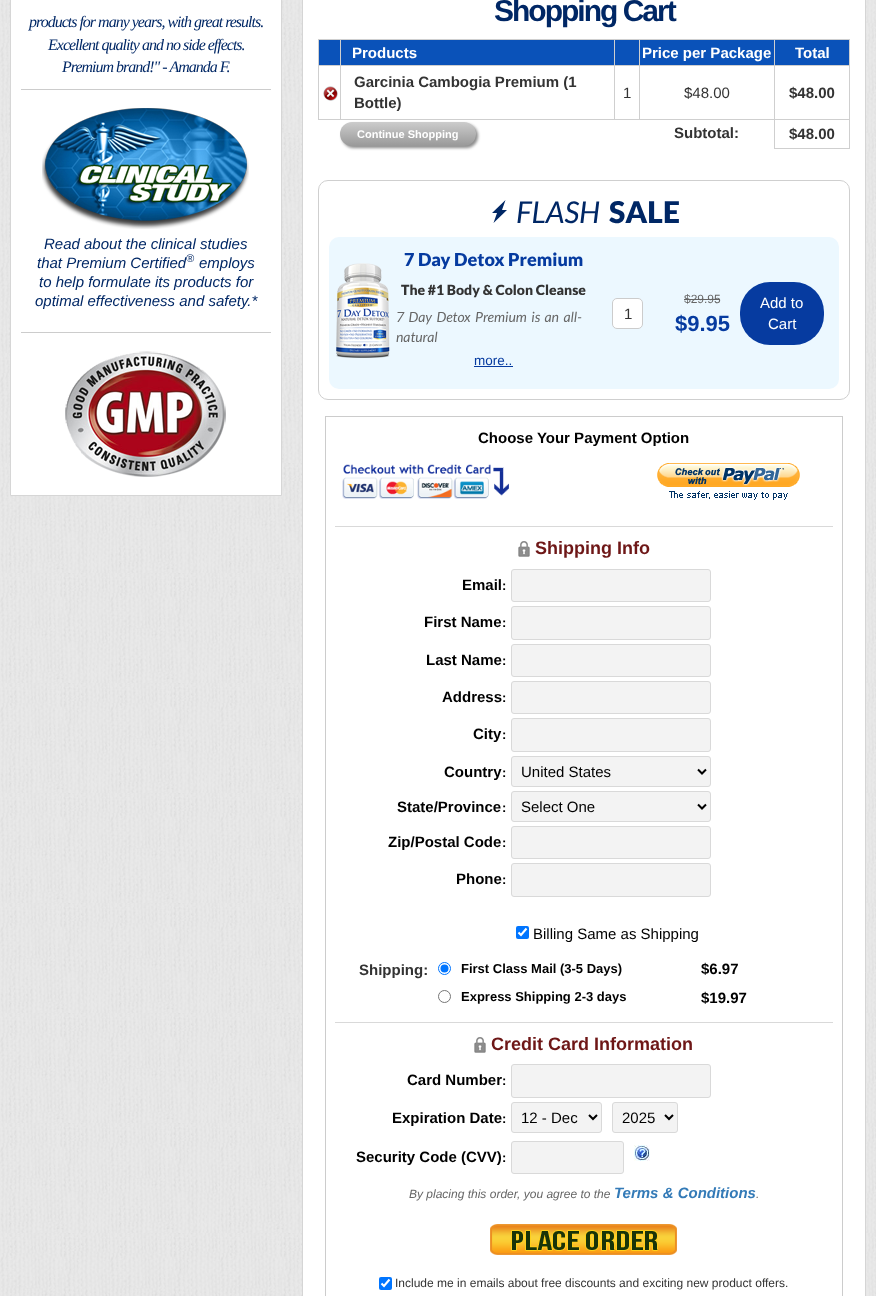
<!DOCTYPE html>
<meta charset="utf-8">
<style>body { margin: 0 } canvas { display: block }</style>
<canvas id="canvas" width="876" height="1296"></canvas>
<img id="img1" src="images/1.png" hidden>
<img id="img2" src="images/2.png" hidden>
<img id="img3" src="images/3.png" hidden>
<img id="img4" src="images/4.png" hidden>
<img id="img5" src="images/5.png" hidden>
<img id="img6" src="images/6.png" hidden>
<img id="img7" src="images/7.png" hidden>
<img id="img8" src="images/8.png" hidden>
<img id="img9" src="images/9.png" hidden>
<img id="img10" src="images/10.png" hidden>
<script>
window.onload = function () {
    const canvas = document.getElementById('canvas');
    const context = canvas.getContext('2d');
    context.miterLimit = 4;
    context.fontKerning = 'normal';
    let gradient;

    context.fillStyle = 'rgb(255, 255, 255)';
    context.fillRect(0, 0, 876, 1296);
    context.drawImage(document.getElementById('img1'), 0, 0, 876, 1296);
    context.beginPath();
    context.rect(10.5, -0.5, 271, 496);
    context.fill();
    context.strokeStyle = 'rgb(214, 214, 214)';
    context.stroke();
    context.fillStyle = 'rgb(204, 204, 204)';
    context.fillRect(21, 89, 250, 1);
    context.drawImage(document.getElementById('img2'), 42, 108, 207, 121);
    context.fillRect(21, 332, 250, 1);
    context.drawImage(document.getElementById('img3'), 65, 351, 161, 126);
    context.fillStyle = 'rgb(255, 255, 255)';
    context.beginPath();
    context.rect(302.5, -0.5, 563, 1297);
    context.fill();
    context.strokeStyle = 'rgb(213, 213, 213)';
    context.stroke();
    context.fillStyle = 'rgb(10, 82, 185)';
    context.fillRect(319, 40, 21, 25);
    context.fillStyle = 'rgb(207, 207, 207)';
    context.fillRect(340, 39, 510, 1);
    context.fillRect(849, 65, 1, 84);
    context.fillRect(849, 39, 1, 27);
    context.fillRect(774, 148, 76, 1);
    context.fillRect(774, 119, 1, 30);
    context.fillRect(774, 119, 76, 1);
    context.fillRect(774, 65, 1, 55);
    context.fillRect(774, 65, 76, 1);
    context.fillRect(774, 39, 1, 27);
    context.fillRect(639, 119, 136, 1);
    context.fillRect(639, 65, 1, 55);
    context.fillRect(639, 65, 136, 1);
    context.fillRect(639, 39, 1, 27);
    context.fillRect(614, 119, 26, 1);
    context.fillRect(614, 65, 1, 55);
    context.fillRect(614, 65, 26, 1);
    context.fillRect(614, 39, 1, 27);
    context.fillRect(340, 119, 275, 1);
    context.fillRect(340, 65, 1, 55);
    context.fillRect(340, 65, 275, 1);
    context.fillRect(340, 39, 1, 27);
    context.fillRect(318, 39, 23, 1);
    context.fillRect(318, 119, 23, 1);
    context.fillRect(318, 65, 1, 55);
    context.fillRect(318, 65, 23, 1);
    context.fillRect(318, 39, 1, 27);
    context.fillStyle = 'rgb(10, 82, 185)';
    context.fillRect(341, 40, 273, 25);
    context.fillRect(615, 40, 24, 25);
    context.fillRect(640, 40, 134, 25);
    context.fillRect(775, 40, 74, 25);
    context.drawImage(document.getElementById('img4'), 323, 86, 15, 15);
    context.fillStyle = 'rgba(0, 0, 0, 0.46)';
    context.filter = 'blur(1.5px)';
    context.beginPath();
    context.roundRect(342, 124, 136, 24, 12);
    context.fill();
    context.filter = 'none';
    gradient = context.createLinearGradient(408, 122, 408, 146);
    gradient.addColorStop(0, 'rgb(204, 204, 204)');
    gradient.addColorStop(1, 'rgb(153, 153, 153)');
    context.fillStyle = gradient;
    context.beginPath();
    context.roundRect(340, 122, 136, 24, 12);
    context.fill();
    context.beginPath();
    context.roundRect(318.5, 180.5, 531, 219, 9.5);
    context.strokeStyle = 'rgb(207, 207, 207)';
    context.stroke();
    context.fillStyle = 'rgb(0, 39, 101)';
    context.beginPath();
    context.moveTo(505.5, 200);
    context.lineTo(492, 213);
    context.lineTo(497, 213);
    context.lineTo(493.5, 223);
    context.lineTo(507, 210);
    context.lineTo(502, 210);
    context.closePath();
    context.fill();
    context.fillStyle = 'rgb(236, 248, 255)';
    context.beginPath();
    context.roundRect(329, 237, 510, 152, 10);
    context.fill();
    context.drawImage(document.getElementById('img5'), 336, 263, 54, 95);
    context.fillStyle = 'rgb(6, 59, 160)';
    context.fillRect(474, 366, 39, 1);
    context.fillStyle = 'rgb(255, 255, 255)';
    context.beginPath();
    context.roundRect(612.5, 298.5, 30, 30, 4.5);
    context.fill();
    context.strokeStyle = 'rgb(204, 204, 204)';
    context.stroke();
    context.fillStyle = 'rgb(6, 59, 160)';
    context.beginPath();
    context.roundRect(740, 282, 84, 63, 30);
    context.fill();
    context.strokeRect(325.5, 416.5, 517, 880);
    context.drawImage(document.getElementById('img6'), 342, 464, 167, 35);
    context.drawImage(document.getElementById('img7'), 657, 463, 143, 37);
    context.fillStyle = 'rgb(217, 217, 217)';
    context.fillRect(335, 526, 498, 1);
    context.drawImage(document.getElementById('img8'), 518, 541, 12, 16);
    context.fillStyle = 'rgb(243, 243, 243)';
    context.beginPath();
    context.roundRect(511.5, 569.5, 199, 32, 2.5);
    context.fill();
    context.strokeStyle = 'rgb(217, 217, 217)';
    context.stroke();
    context.beginPath();
    context.roundRect(511.5, 606.5, 199, 33, 2.5);
    context.fill();
    context.stroke();
    context.beginPath();
    context.roundRect(511.5, 644.5, 199, 32, 2.5);
    context.fill();
    context.stroke();
    context.beginPath();
    context.roundRect(511.5, 681.5, 199, 32, 2.5);
    context.fill();
    context.stroke();
    context.beginPath();
    context.roundRect(511.5, 718.5, 199, 33, 2.5);
    context.fill();
    context.stroke();
    context.beginPath();
    context.roundRect(511.5, 756.5, 199, 30, 2.5);
    context.fill();
    context.stroke();
    context.beginPath();
    context.moveTo(698, 769.5);
    context.lineTo(702, 773.5);
    context.lineTo(706, 769.5);
    context.strokeStyle = 'rgb(0, 0, 0)';
    context.lineWidth = 2;
    context.stroke();
    context.beginPath();
    context.roundRect(511.5, 791.5, 199, 30, 2.5);
    context.fill();
    context.strokeStyle = 'rgb(217, 217, 217)';
    context.lineWidth = 1;
    context.stroke();
    context.beginPath();
    context.moveTo(698, 804.5);
    context.lineTo(702, 808.5);
    context.lineTo(706, 804.5);
    context.strokeStyle = 'rgb(0, 0, 0)';
    context.lineWidth = 2;
    context.stroke();
    context.beginPath();
    context.roundRect(511.5, 826.5, 199, 32, 2.5);
    context.fill();
    context.strokeStyle = 'rgb(217, 217, 217)';
    context.lineWidth = 1;
    context.stroke();
    context.beginPath();
    context.roundRect(511.5, 863.5, 199, 33, 2.5);
    context.fill();
    context.stroke();
    context.fillStyle = 'rgb(0, 117, 255)';
    context.beginPath();
    context.roundRect(516, 926, 13, 13, 2);
    context.fill();
    context.beginPath();
    context.moveTo(518.5, 932.5);
    context.lineTo(521, 935);
    context.lineTo(526.5, 928.5);
    context.strokeStyle = 'rgb(255, 255, 255)';
    context.lineWidth = 2.1;
    context.stroke();
    context.beginPath();
    context.arc(444.5, 968.5, 6, 0, 2 * Math.PI);
    context.strokeStyle = 'rgb(0, 117, 255)';
    context.lineWidth = 1;
    context.stroke();
    context.beginPath();
    context.arc(444.5, 968.5, 4, 0, 2 * Math.PI);
    context.fill();
    context.beginPath();
    context.arc(444.5, 996.5, 6, 0, 2 * Math.PI);
    context.strokeStyle = 'rgb(118, 118, 118)';
    context.stroke();
    context.fillStyle = 'rgb(217, 217, 217)';
    context.fillRect(335, 1022, 498, 1);
    context.drawImage(document.getElementById('img8'), 474, 1037, 12, 16);
    context.fillStyle = 'rgb(243, 243, 243)';
    context.beginPath();
    context.roundRect(511.5, 1064.5, 199, 33, 2.5);
    context.fill();
    context.strokeStyle = 'rgb(217, 217, 217)';
    context.stroke();
    context.beginPath();
    context.roundRect(511.5, 1102.5, 90, 30, 2.5);
    context.fill();
    context.stroke();
    context.beginPath();
    context.moveTo(589, 1115);
    context.lineTo(593, 1119);
    context.lineTo(597, 1115);
    context.strokeStyle = 'rgb(0, 0, 0)';
    context.lineWidth = 2;
    context.stroke();
    context.beginPath();
    context.roundRect(612.5, 1102.5, 65, 30, 2.5);
    context.fill();
    context.strokeStyle = 'rgb(217, 217, 217)';
    context.lineWidth = 1;
    context.stroke();
    context.beginPath();
    context.moveTo(665, 1115);
    context.lineTo(669, 1119);
    context.lineTo(673, 1115);
    context.strokeStyle = 'rgb(0, 0, 0)';
    context.lineWidth = 2;
    context.stroke();
    context.beginPath();
    context.roundRect(511.5, 1141.5, 112, 32, 2.5);
    context.fill();
    context.strokeStyle = 'rgb(217, 217, 217)';
    context.lineWidth = 1;
    context.stroke();
    context.drawImage(document.getElementById('img9'), 634, 1145, 16, 16);
    context.drawImage(document.getElementById('img10'), 490, 1224, 187, 31);
    context.fillStyle = 'rgb(0, 117, 255)';
    context.beginPath();
    context.roundRect(379, 1277, 13, 13, 2);
    context.fill();
    context.beginPath();
    context.moveTo(381.5, 1283.5);
    context.lineTo(384, 1286);
    context.lineTo(389.5, 1279.5);
    context.strokeStyle = 'rgb(255, 255, 255)';
    context.lineWidth = 2.1;
    context.stroke();
    context.letterSpacing = '-1px';
    context.font = 'italic 16px Liberation Serif';
    context.fillStyle = 'rgb(0, 39, 101)';
    context.fillText('products for many years, with great results.', 29, 27);
    context.fillText('Excellent quality and no side effects.', 48, 50);
    context.fillText('Premium brand!" - Amanda F.', 62, 72);
    context.letterSpacing = '0px';
    context.font = 'italic 15px Liberation Sans';
    context.fillText('Read about the clinical studies', 44, 249);
    context.fillText('that Premium Certified', 37, 268);
    context.font = 'italic 11px Liberation Sans';
    context.fillText('®', 186, 262);
    context.font = 'italic 15px Liberation Sans';
    context.fillText('employs', 199, 268);
    context.fillText('to help formulate its products for', 39, 287);
    context.fillText('optimal effectiveness and safety.*', 35, 306);
    context.letterSpacing = '-2px';
    context.font = 'bold 30px Liberation Sans';
    context.fillText('Shopping Cart', 494, 21);
    context.letterSpacing = '0px';
    context.font = 'bold 15px Liberation Sans';
    context.fillStyle = 'rgb(255, 255, 255)';
    context.fillText('Products', 352, 58);
    context.fillText('Price per Package', 642, 58);
    context.fillText('Total', 795, 58);
    context.fillStyle = 'rgb(51, 51, 51)';
    context.fillText('Garcinia Cambogia Premium (1', 354, 87);
    context.fillText('Bottle)', 354, 108);
    context.font = '15px Liberation Sans';
    context.fillText('1', 623, 98);
    context.fillText('$48.00', 684, 98);
    context.font = 'bold 15px Liberation Sans';
    context.fillText('$48.00', 789, 98);
    context.font = 'bold 11px Liberation Sans';
    context.fillStyle = 'rgb(255, 255, 255)';
    context.fillText('Continue Shopping', 357, 138);
    context.font = 'bold 15px Liberation Sans';
    context.fillStyle = 'rgb(51, 51, 51)';
    context.fillText('Subtotal:', 674, 138);
    context.fillText('$48.00', 789, 139);
    context.font = 'italic 30px Lato';
    context.fillStyle = 'rgb(0, 39, 101)';
    context.fillText('FLASH', 516, 223);
    context.font = '900 30px Lato';
    context.fillText('SALE', 609, 223);
    context.font = '900 18px Lato';
    context.fillStyle = 'rgb(6, 59, 160)';
    context.fillText('7 Day Detox Premium', 404, 266);
    context.font = '900 14px Lato';
    context.fillStyle = 'rgb(51, 51, 51)';
    context.fillText('The #1 Body & Colon Cleanse', 401, 295);
    context.wordSpacing = '1.75px';
    context.font = 'italic 14px Lato';
    context.fillStyle = 'rgb(102, 102, 102)';
    context.fillText('7 Day Detox Premium is an all-', 396, 322);
    context.wordSpacing = '0px';
    context.fillText('natural', 396, 342);
    context.font = '13.5px Liberation Sans';
    context.fillStyle = 'rgb(6, 59, 160)';
    context.fillText('more..', 474, 365);
    context.font = '15px Liberation Sans';
    context.fillStyle = 'rgb(51, 51, 51)';
    context.fillText('1', 624, 319);
    context.font = '12px Liberation Sans';
    context.fillStyle = 'rgb(102, 102, 102)';
    context.fillText('$29.95', 684, 303);
    context.fillStyle = 'rgb(101, 101, 101)';
    context.fillRect(684, 299, 36, 1);
    context.font = 'bold 22px Liberation Sans';
    context.fillStyle = 'rgb(6, 59, 160)';
    context.fillText('$9.95', 675, 331);
    context.font = '15px Liberation Sans';
    context.fillStyle = 'rgb(255, 255, 255)';
    context.fillText('Add to', 760, 308);
    context.fillText('Cart', 768, 329);
    context.font = 'bold 15px Liberation Sans';
    context.fillStyle = 'rgb(0, 0, 0)';
    context.fillText('Choose Your Payment Option', 478, 443);
    context.font = 'bold 18px Liberation Sans';
    context.fillStyle = 'rgb(110, 23, 23)';
    context.fillText('Shipping Info', 535, 554);
    context.font = 'bold 15px Liberation Sans';
    context.fillStyle = 'rgb(0, 0, 0)';
    context.fillText('Email', 462, 590);
    context.font = 'bold 13px Liberation Sans';
    context.fillText(':', 502, 590);
    context.font = 'bold 15px Liberation Sans';
    context.fillText('First Name', 424, 627);
    context.font = 'bold 13px Liberation Sans';
    context.fillText(':', 502, 627);
    context.font = 'bold 15px Liberation Sans';
    context.fillText('Last Name', 426, 665);
    context.font = 'bold 13px Liberation Sans';
    context.fillText(':', 502, 665);
    context.font = 'bold 15px Liberation Sans';
    context.fillText('Address', 442, 702);
    context.font = 'bold 13px Liberation Sans';
    context.fillText(':', 502, 702);
    context.font = 'bold 15px Liberation Sans';
    context.fillText('City', 473, 739);
    context.font = 'bold 13px Liberation Sans';
    context.fillText(':', 502, 739);
    context.font = 'bold 15px Liberation Sans';
    context.fillText('Country', 444, 777);
    context.font = 'bold 13px Liberation Sans';
    context.fillText(':', 502, 777);
    context.font = '15px Liberation Sans';
    context.fillText('United States', 521, 777);
    context.font = 'bold 15px Liberation Sans';
    context.fillText('State/Province', 397, 812);
    context.font = 'bold 13px Liberation Sans';
    context.fillText(':', 502, 812);
    context.font = '15px Liberation Sans';
    context.fillText('Select One', 521, 812);
    context.font = 'bold 15px Liberation Sans';
    context.fillText('Zip/Postal Code', 388, 847);
    context.font = 'bold 13px Liberation Sans';
    context.fillText(':', 502, 847);
    context.font = 'bold 15px Liberation Sans';
    context.fillText('Phone', 456, 884);
    context.font = 'bold 13px Liberation Sans';
    context.fillText(':', 502, 884);
    context.font = '15px Liberation Sans';
    context.fillText('Billing Same as Shipping', 533, 939);
    context.font = 'bold 15px Liberation Sans';
    context.fillStyle = 'rgb(51, 51, 51)';
    context.fillText('Shipping:', 359, 975);
    context.font = 'bold 13px Liberation Sans';
    context.fillStyle = 'rgb(0, 0, 0)';
    context.fillText('First Class Mail (3-5 Days)', 461, 973);
    context.font = 'bold 15px Liberation Sans';
    context.fillText('$6.97', 701, 974);
    context.font = 'bold 13px Liberation Sans';
    context.fillText('Express Shipping 2-3 days', 461, 1001);
    context.font = 'bold 15px Liberation Sans';
    context.fillText('$19.97', 701, 1003);
    context.font = 'bold 18px Liberation Sans';
    context.fillStyle = 'rgb(110, 23, 23)';
    context.fillText('Credit Card Information', 491, 1050);
    context.font = 'bold 15px Liberation Sans';
    context.fillStyle = 'rgb(0, 0, 0)';
    context.fillText('Card Number', 407, 1085);
    context.font = 'bold 13px Liberation Sans';
    context.fillText(':', 502, 1085);
    context.font = 'bold 15px Liberation Sans';
    context.fillText('Expiration Date', 392, 1123);
    context.font = 'bold 13px Liberation Sans';
    context.fillText(':', 502, 1123);
    context.font = '15px Liberation Sans';
    context.fillText('12 - Dec', 521, 1123);
    context.fillText('2025', 622, 1123);
    context.font = 'bold 15px Liberation Sans';
    context.fillText('Security Code (CVV)', 356, 1162);
    context.font = 'bold 13px Liberation Sans';
    context.fillText(':', 502, 1162);
    context.font = 'italic 12px Liberation Sans';
    context.fillStyle = 'rgb(102, 102, 102)';
    context.fillText('By placing this order, you agree to the', 409, 1198);
    context.font = 'italic bold 15px Liberation Sans';
    context.fillStyle = 'rgb(51, 122, 183)';
    context.fillText('Terms & Conditions', 614, 1198);
    context.font = 'italic 12px Liberation Sans';
    context.fillStyle = 'rgb(102, 102, 102)';
    context.fillText('.', 756, 1198);
    context.font = '12px Liberation Sans';
    context.fillStyle = 'rgb(51, 51, 51)';
    context.fillText('Include me in emails about free discounts and exciting new product offers.', 395, 1287);
};
</script>
